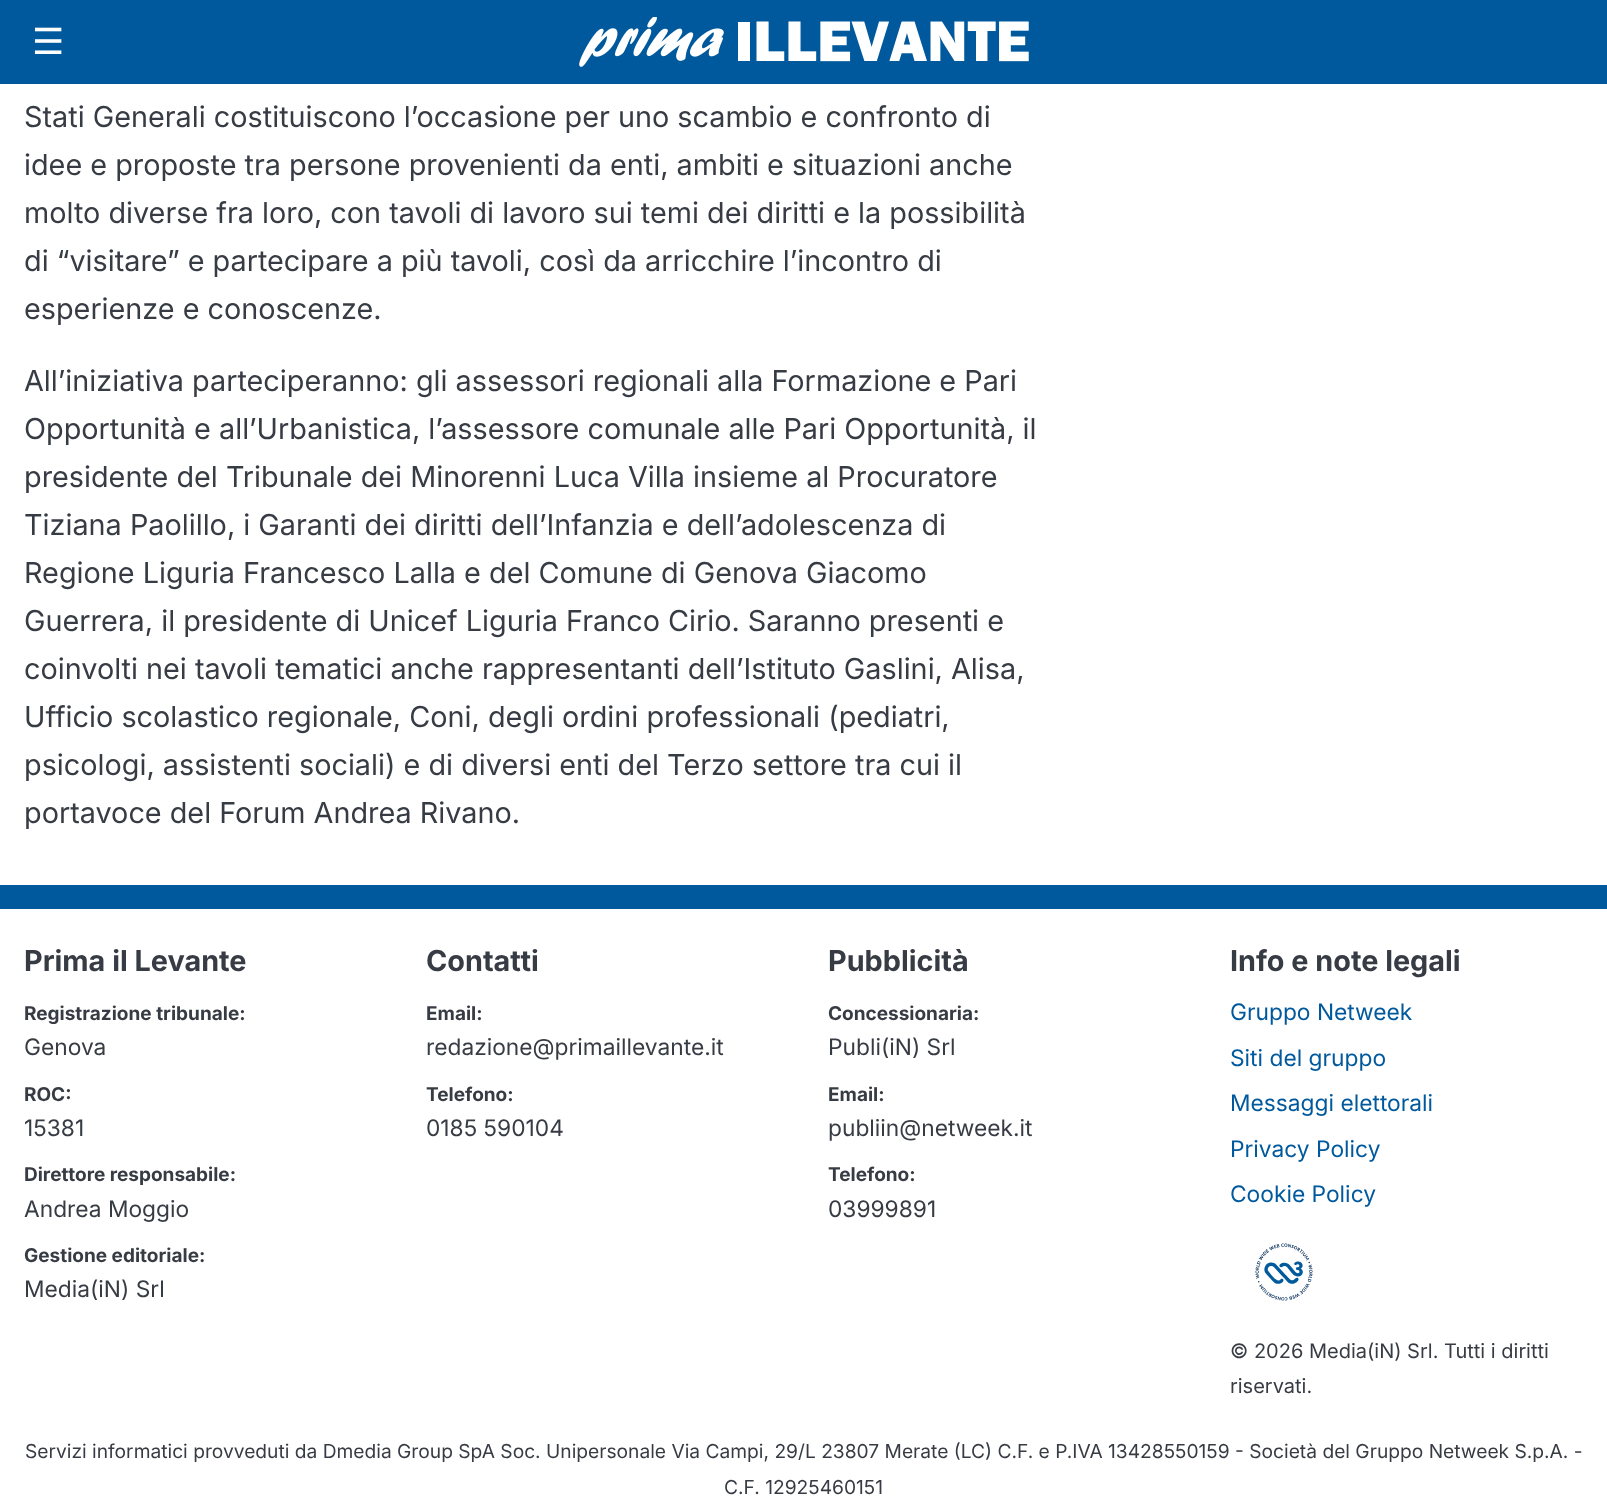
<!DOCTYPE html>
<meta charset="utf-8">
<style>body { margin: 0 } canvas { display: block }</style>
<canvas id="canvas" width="1607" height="1512"></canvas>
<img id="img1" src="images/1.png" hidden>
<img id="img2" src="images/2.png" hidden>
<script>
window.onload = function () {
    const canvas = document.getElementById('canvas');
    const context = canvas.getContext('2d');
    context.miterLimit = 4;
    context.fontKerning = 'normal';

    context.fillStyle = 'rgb(255, 255, 255)';
    context.fillRect(0, 0, 1607, 1512);
    context.fillStyle = 'rgb(0, 89, 156)';
    context.fillRect(0, 0, 1607, 84);
    context.drawImage(document.getElementById('img1'), 579, 17, 450, 50);
    context.fillRect(0, 885, 1607, 24);
    context.drawImage(document.getElementById('img2'), 1255, 1243, 58, 58);
    context.font = '36px DejaVu Sans';
    context.fillStyle = 'rgb(255, 255, 255)';
    context.fillText('☰', 32, 54);
    context.font = '28.8px Inter';
    context.fillStyle = 'rgb(55, 60, 68)';
    context.fillText('Stati Generali costituiscono l’occasione per uno scambio e confronto di', 24, 127);
    context.fillText('idee e proposte tra persone provenienti da enti, ambiti e situazioni anche', 24, 175);
    context.fillText('molto diverse fra loro, con tavoli di lavoro sui temi dei diritti e la possibilità', 24, 223);
    context.fillText('di “visitare” e partecipare a più tavoli, così da arricchire l’incontro di', 24, 271);
    context.fillText('esperienze e conoscenze.', 24, 319);
    context.fillText('All’iniziativa parteciperanno: gli assessori regionali alla Formazione e Pari', 24, 391);
    context.fillText('Opportunità e all’Urbanistica, l’assessore comunale alle Pari Opportunità, il', 24, 439);
    context.fillText('presidente del Tribunale dei Minorenni Luca Villa insieme al Procuratore', 24, 487);
    context.fillText('Tiziana Paolillo, i Garanti dei diritti dell’Infanzia e dell’adolescenza di', 24, 535);
    context.fillText('Regione Liguria Francesco Lalla e del Comune di Genova Giacomo', 24, 583);
    context.fillText('Guerrera, il presidente di Unicef Liguria Franco Cirio. Saranno presenti e', 24, 631);
    context.fillText('coinvolti nei tavoli tematici anche rappresentanti dell’Istituto Gaslini, Alisa,', 24, 679);
    context.fillText('Ufficio scolastico regionale, Coni, degli ordini professionali (pediatri,', 24, 727);
    context.fillText('psicologi, assistenti sociali) e di diversi enti del Terzo settore tra cui il', 24, 775);
    context.fillText('portavoce del Forum Andrea Rivano.', 24, 823);
    context.font = 'bold 28.8px Inter';
    context.fillText('Prima il Levante', 24, 971);
    context.font = 'bold 19px Inter';
    context.fillText('Registrazione tribunale:', 24, 1020);
    context.font = '22.75px Inter';
    context.fillText('Genova', 24, 1055);
    context.font = 'bold 19px Inter';
    context.fillText('ROC:', 24, 1101);
    context.font = '22.75px Inter';
    context.fillText('15381', 24, 1136);
    context.font = 'bold 19px Inter';
    context.fillText('Direttore responsabile:', 24, 1181);
    context.font = '22.75px Inter';
    context.fillText('Andrea Moggio', 24, 1217);
    context.font = 'bold 19px Inter';
    context.fillText('Gestione editoriale:', 24, 1262);
    context.font = '22.75px Inter';
    context.fillText('Media(iN) Srl', 24, 1297);
    context.font = 'bold 28.8px Inter';
    context.fillText('Contatti', 426, 971);
    context.font = 'bold 19px Inter';
    context.fillText('Email:', 426, 1020);
    context.font = '22.75px Inter';
    context.fillText('redazione@primaillevante.it', 426, 1055);
    context.font = 'bold 19px Inter';
    context.fillText('Telefono:', 426, 1101);
    context.font = '22.75px Inter';
    context.fillText('0185 590104', 426, 1136);
    context.font = 'bold 28.8px Inter';
    context.fillText('Pubblicità', 828, 971);
    context.font = 'bold 19px Inter';
    context.fillText('Concessionaria:', 828, 1020);
    context.font = '22.75px Inter';
    context.fillText('Publi(iN) Srl', 828, 1055);
    context.font = 'bold 19px Inter';
    context.fillText('Email:', 828, 1101);
    context.font = '22.75px Inter';
    context.fillText('publiin@netweek.it', 828, 1136);
    context.font = 'bold 19px Inter';
    context.fillText('Telefono:', 828, 1181);
    context.font = '22.75px Inter';
    context.fillText('03999891', 828, 1217);
    context.font = 'bold 28.8px Inter';
    context.fillText('Info e note legali', 1230, 971);
    context.font = '22.75px Inter';
    context.fillStyle = 'rgb(0, 89, 156)';
    context.fillText('Gruppo Netweek', 1230, 1020);
    context.fillText('Siti del gruppo', 1230, 1066);
    context.fillText('Messaggi elettorali', 1230, 1111);
    context.fillText('Privacy Policy', 1230, 1157);
    context.fillText('Cookie Policy', 1230, 1202);
    context.font = '20px Inter';
    context.fillStyle = 'rgb(55, 60, 68)';
    context.fillText('© 2026 Media(iN) Srl. Tutti i diritti', 1230, 1358);
    context.fillText('riservati.', 1230, 1393);
    context.font = '19.2px Inter';
    context.fillText('Servizi informatici provveduti da Dmedia Group SpA Soc. Unipersonale Via Campi, 29/L 23807 Merate (LC) C.F. e P.IVA 13428550159 - Società del Gruppo Netweek S.p.A. -', 25, 1458);
    context.fillText('C.F. 12925460151', 724, 1494);
};
</script>
